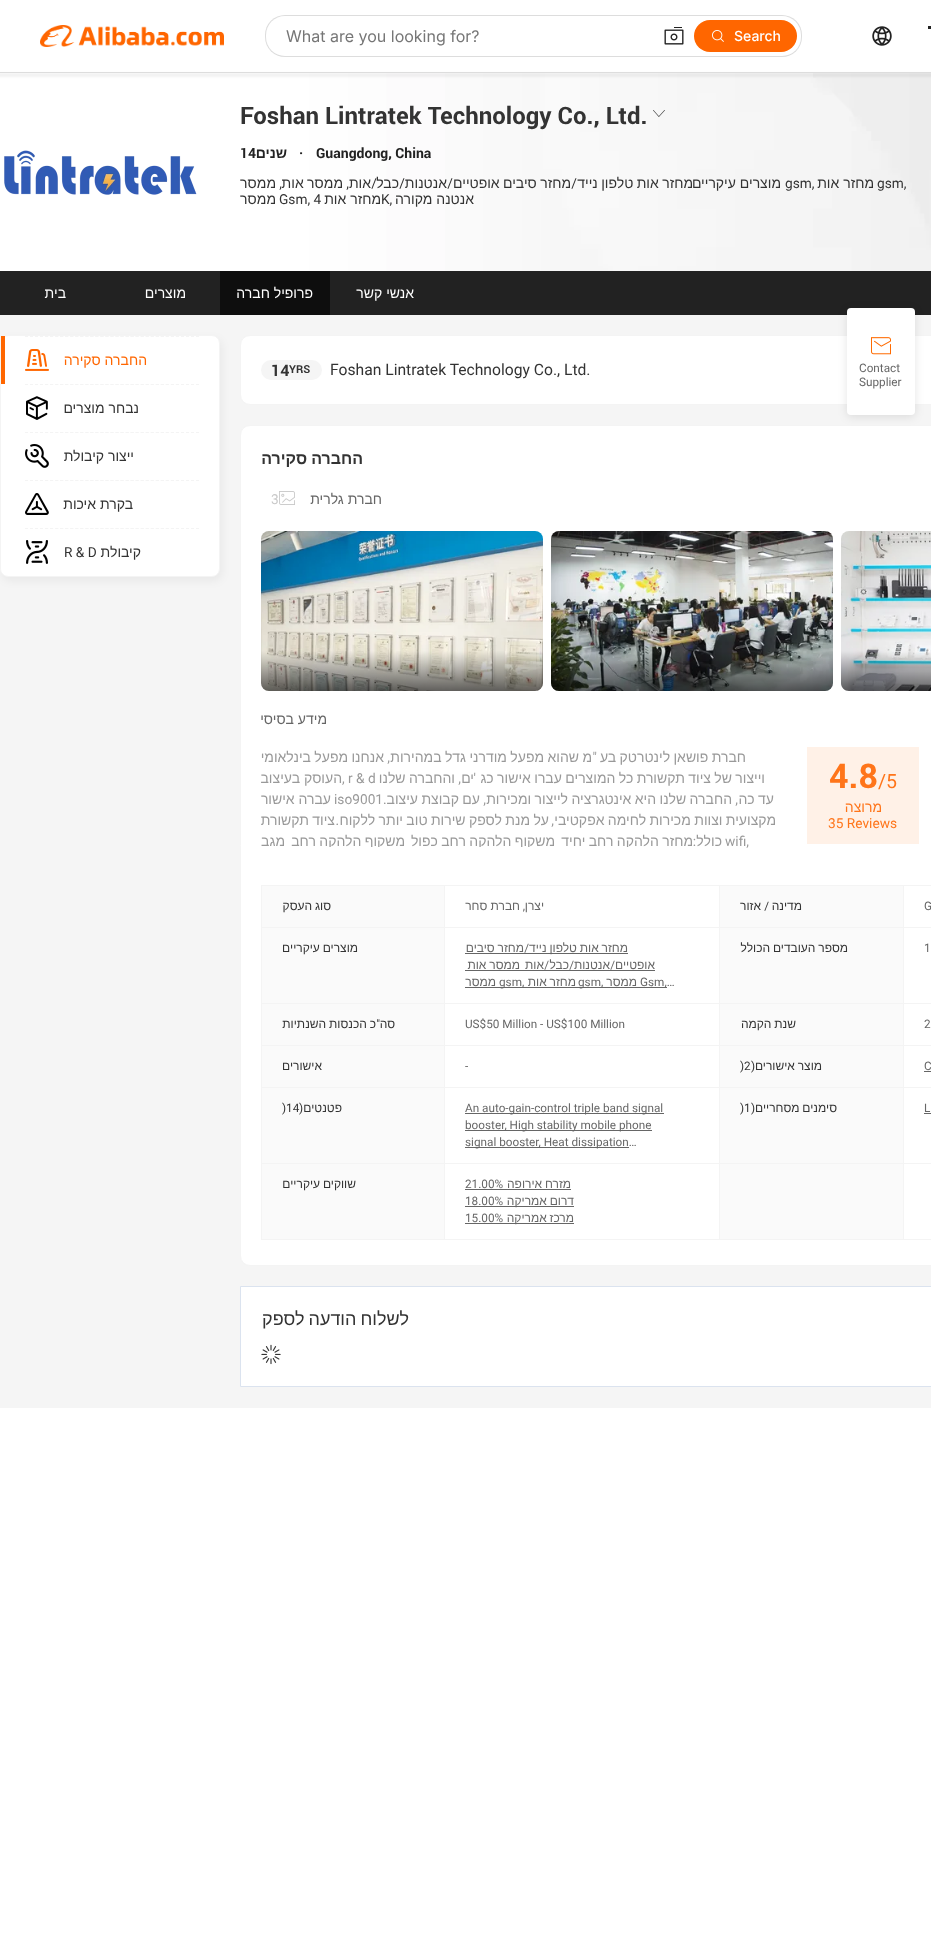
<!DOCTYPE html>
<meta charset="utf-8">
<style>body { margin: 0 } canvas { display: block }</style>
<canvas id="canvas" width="931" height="1948"></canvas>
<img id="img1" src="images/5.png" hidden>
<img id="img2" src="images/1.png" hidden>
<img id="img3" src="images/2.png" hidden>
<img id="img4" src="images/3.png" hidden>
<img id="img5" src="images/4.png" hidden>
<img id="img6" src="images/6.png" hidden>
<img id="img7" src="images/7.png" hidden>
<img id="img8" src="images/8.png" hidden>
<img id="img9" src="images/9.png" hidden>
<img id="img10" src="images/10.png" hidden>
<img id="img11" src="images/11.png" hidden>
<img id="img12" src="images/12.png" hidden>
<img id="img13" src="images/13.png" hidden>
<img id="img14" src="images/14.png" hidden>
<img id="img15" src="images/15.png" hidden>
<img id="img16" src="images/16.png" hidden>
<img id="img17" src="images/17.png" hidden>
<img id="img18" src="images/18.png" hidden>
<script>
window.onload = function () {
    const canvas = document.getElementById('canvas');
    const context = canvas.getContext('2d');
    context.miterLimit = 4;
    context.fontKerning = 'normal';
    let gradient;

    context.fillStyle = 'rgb(255, 255, 255)';
    context.fillRect(0, 0, 931, 1948);
    context.drawImage(document.getElementById('img1'), 0, 73, 931, 198);
    context.fillStyle = 'rgba(0, 0, 0, 0.05)';
    context.filter = 'blur(1px)';
    context.beginPath();
    context.rect(-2, 73, 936, 4);
    context.fill();
    context.filter = 'none';
    context.fillStyle = 'rgb(221, 221, 221)';
    context.fillRect(0, 72, 931, 1);
    context.fillStyle = 'rgb(34, 34, 34)';
    context.fillRect(928, 26, 3, 3);
    context.drawImage(document.getElementById('img2'), 872, 26, 20, 20);
    context.fillStyle = 'rgb(221, 221, 221)';
    context.beginPath();
    context.roundRect(265, 15, 537, 42, 20);
    context.fill();
    context.fillStyle = 'rgb(255, 255, 255)';
    context.beginPath();
    context.roundRect(266, 16, 535, 40, 19);
    context.fill();
    context.fillStyle = 'rgb(255, 102, 0)';
    context.beginPath();
    context.roundRect(694, 20, 103, 32, 16);
    context.fill();
    context.drawImage(document.getElementById('img3'), 712, 30, 12, 12);
    context.drawImage(document.getElementById('img4'), 664, 27, 20, 18);
    context.drawImage(document.getElementById('img5'), 40, 25, 184, 22);
    context.drawImage(document.getElementById('img6'), 653, 110, 12, 7);
    context.drawImage(document.getElementById('img7'), 4, 150, 193, 45);
    context.fillStyle = 'rgb(34, 34, 34)';
    context.fillRect(0, 271, 931, 44);
    context.fillStyle = 'rgb(14, 14, 14)';
    context.fillRect(220, 271, 110, 44);
    context.fillStyle = 'rgb(245, 245, 245)';
    context.fillRect(0, 315, 931, 1093);
    context.fillStyle = 'rgb(255, 255, 255)';
    context.beginPath();
    context.roundRect(240.5, 335.5, 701, 69, 9.5);
    context.fill();
    context.strokeStyle = 'rgb(244, 244, 244)';
    context.stroke();
    context.fillStyle = 'rgb(245, 245, 245)';
    context.beginPath();
    context.roundRect(261, 360, 61, 20, 10);
    context.fill();
    context.fillStyle = 'rgb(255, 255, 255)';
    context.beginPath();
    context.roundRect(240.5, 425.5, 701, 840, 9.5);
    context.fill();
    context.stroke();
    context.drawImage(document.getElementById('img8'), 279, 491, 16, 14);
    context.drawImage(document.getElementById('img9'), 841, 531, 90, 160);
    gradient = context.createLinearGradient(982, 651, 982, 691);
    gradient.addColorStop(0, 'rgba(0, 0, 0, 0)');
    gradient.addColorStop(1, 'rgba(0, 0, 0, 0.6)');
    context.fillStyle = gradient;
    context.beginPath();
    context.moveTo(841, 651);
    context.lineTo(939, 651);
    context.lineTo(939, 683);
    context.bezierCurveTo(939, 687.5, 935.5, 691, 931, 691);
    context.lineTo(849, 691);
    context.bezierCurveTo(844.5, 691, 841, 687.5, 841, 683);
    context.closePath();
    context.fill();
    context.drawImage(document.getElementById('img10'), 551, 531, 282, 160);
    gradient = context.createLinearGradient(692, 651, 692, 691);
    gradient.addColorStop(0, 'rgba(0, 0, 0, 0)');
    gradient.addColorStop(1, 'rgba(0, 0, 0, 0.6)');
    context.fillStyle = gradient;
    context.beginPath();
    context.roundRect(551, 651, 282, 40, [0, 0, 8, 8]);
    context.fill();
    context.drawImage(document.getElementById('img11'), 261, 531, 282, 160);
    gradient = context.createLinearGradient(402, 651, 402, 691);
    gradient.addColorStop(0, 'rgba(0, 0, 0, 0)');
    gradient.addColorStop(1, 'rgba(0, 0, 0, 0.6)');
    context.fillStyle = gradient;
    context.beginPath();
    context.roundRect(261, 651, 282, 40, [0, 0, 8, 8]);
    context.fill();
    context.fillStyle = 'rgb(255, 241, 231)';
    context.fillRect(807, 747, 112, 97);
    context.fillStyle = 'rgb(244, 244, 244)';
    context.fillRect(903, 885, 28, 1);
    context.fillRect(903, 927, 28, 1);
    context.fillRect(903, 1003, 28, 1);
    context.fillRect(903, 1045, 28, 1);
    context.fillRect(903, 1087, 28, 1);
    context.fillRect(903, 1163, 28, 1);
    context.fillRect(903, 1239, 28, 1);
    context.fillRect(903, 1163, 1, 77);
    context.fillRect(719, 1163, 185, 1);
    context.fillRect(903, 1087, 1, 77);
    context.fillRect(719, 1087, 185, 1);
    context.fillRect(903, 1045, 1, 43);
    context.fillRect(719, 1045, 185, 1);
    context.fillRect(903, 1003, 1, 43);
    context.fillRect(719, 1003, 185, 1);
    context.fillRect(903, 927, 1, 77);
    context.fillRect(719, 927, 185, 1);
    context.fillRect(903, 885, 1, 43);
    context.fillStyle = 'rgb(250, 250, 250)';
    context.fillRect(720, 886, 183, 41);
    context.fillStyle = 'rgb(244, 244, 244)';
    context.fillRect(719, 885, 185, 1);
    context.fillRect(719, 1239, 185, 1);
    context.fillRect(719, 1163, 1, 77);
    context.fillRect(444, 1163, 276, 1);
    context.fillRect(719, 1087, 1, 77);
    context.fillRect(444, 1087, 276, 1);
    context.fillRect(719, 1045, 1, 43);
    context.fillRect(444, 1045, 276, 1);
    context.fillRect(719, 1003, 1, 43);
    context.fillRect(444, 1003, 276, 1);
    context.fillRect(719, 927, 1, 77);
    context.fillRect(444, 927, 276, 1);
    context.fillRect(719, 885, 1, 43);
    context.fillRect(444, 885, 276, 1);
    context.fillRect(444, 1239, 276, 1);
    context.fillRect(444, 1163, 1, 77);
    context.fillRect(261, 1163, 184, 1);
    context.fillRect(444, 1087, 1, 77);
    context.fillRect(261, 1087, 184, 1);
    context.fillRect(444, 1045, 1, 43);
    context.fillRect(261, 1045, 184, 1);
    context.fillRect(444, 1003, 1, 43);
    context.fillRect(261, 1003, 184, 1);
    context.fillRect(444, 927, 1, 77);
    context.fillRect(261, 927, 184, 1);
    context.fillRect(444, 885, 1, 43);
    context.fillStyle = 'rgb(250, 250, 250)';
    context.fillRect(262, 886, 182, 41);
    context.fillStyle = 'rgb(244, 244, 244)';
    context.fillRect(261, 885, 184, 1);
    context.fillRect(261, 1239, 184, 1);
    context.fillRect(261, 1163, 1, 77);
    context.fillRect(261, 1087, 1, 77);
    context.fillRect(261, 1045, 1, 43);
    context.fillRect(261, 1003, 1, 43);
    context.fillRect(261, 927, 1, 77);
    context.fillRect(261, 885, 1, 43);
    context.fillStyle = 'rgb(250, 250, 250)';
    context.fillRect(720, 928, 183, 75);
    context.fillStyle = 'rgb(102, 102, 102)';
    context.fillRect(465, 953, 163, 1);
    context.fillRect(465, 970, 190, 1);
    context.fillRect(465, 987, 202, 1);
    context.fillStyle = 'rgb(250, 250, 250)';
    context.fillRect(262, 928, 182, 75);
    context.fillRect(720, 1004, 183, 41);
    context.fillRect(262, 1004, 182, 41);
    context.fillStyle = 'rgb(102, 102, 102)';
    context.fillRect(924, 1071, 7, 1);
    context.fillStyle = 'rgb(250, 250, 250)';
    context.fillRect(720, 1046, 183, 41);
    context.fillRect(262, 1046, 182, 41);
    context.fillStyle = 'rgb(102, 102, 102)';
    context.fillRect(924, 1113, 7, 1);
    context.fillStyle = 'rgb(250, 250, 250)';
    context.fillRect(720, 1088, 183, 75);
    context.fillStyle = 'rgb(102, 102, 102)';
    context.fillRect(465, 1113, 199, 1);
    context.fillRect(465, 1130, 187, 1);
    context.fillRect(465, 1147, 164, 1);
    context.fillStyle = 'rgb(250, 250, 250)';
    context.fillRect(262, 1088, 182, 75);
    context.fillRect(720, 1164, 183, 75);
    context.fillStyle = 'rgb(102, 102, 102)';
    context.fillRect(465, 1189, 106, 1);
    context.fillRect(465, 1206, 109, 1);
    context.fillRect(465, 1223, 109, 1);
    context.fillStyle = 'rgb(250, 250, 250)';
    context.fillRect(262, 1164, 182, 75);
    context.fillStyle = 'rgb(255, 255, 255)';
    context.beginPath();
    context.rect(240.5, 1286.5, 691, 100);
    context.fill();
    context.strokeStyle = 'rgb(219, 227, 239)';
    context.stroke();
    context.drawImage(document.getElementById('img12'), 261, 1344, 20, 21);
    context.fillStyle = 'rgba(0, 0, 0, 0.05)';
    context.filter = 'blur(4px)';
    context.beginPath();
    context.roundRect(2, 339, 220, 242, 8);
    context.fill();
    context.filter = 'none';
    context.fillStyle = 'rgb(255, 255, 255)';
    context.beginPath();
    context.roundRect(0.5, 335.5, 219, 241, 7.5);
    context.fill();
    context.strokeStyle = 'rgb(244, 244, 244)';
    context.stroke();
    context.fillStyle = 'rgb(255, 102, 0)';
    context.fillRect(1, 336, 4, 48);
    context.beginPath();
    context.moveTo(25, 336.5);
    context.lineTo(199, 336.5);
    context.setLineDash([3, 2.03]);
    context.stroke();
    context.beginPath();
    context.moveTo(25, 336.5);
    context.lineTo(199, 336.5);
    context.stroke();
    context.drawImage(document.getElementById('img13'), 25, 349, 24, 22);
    context.beginPath();
    context.moveTo(25, 384.5);
    context.lineTo(199, 384.5);
    context.stroke();
    context.beginPath();
    context.moveTo(25, 384.5);
    context.lineTo(199, 384.5);
    context.stroke();
    context.drawImage(document.getElementById('img14'), 26, 396, 22, 24);
    context.beginPath();
    context.moveTo(25, 432.5);
    context.lineTo(199, 432.5);
    context.stroke();
    context.beginPath();
    context.moveTo(25, 432.5);
    context.lineTo(199, 432.5);
    context.stroke();
    context.drawImage(document.getElementById('img15'), 25, 444, 24, 24);
    context.beginPath();
    context.moveTo(25, 480.5);
    context.lineTo(199, 480.5);
    context.stroke();
    context.beginPath();
    context.moveTo(25, 480.5);
    context.lineTo(199, 480.5);
    context.stroke();
    context.drawImage(document.getElementById('img16'), 25, 493, 24, 22);
    context.beginPath();
    context.moveTo(25, 528.5);
    context.lineTo(199, 528.5);
    context.stroke();
    context.beginPath();
    context.moveTo(25, 528.5);
    context.lineTo(199, 528.5);
    context.stroke();
    context.drawImage(document.getElementById('img17'), 26, 540, 22, 24);
    context.fillStyle = 'rgba(0, 0, 0, 0.1)';
    context.filter = 'blur(5px)';
    context.beginPath();
    context.roundRect(847, 310, 68, 107, 4);
    context.fill();
    context.filter = 'none';
    context.fillStyle = 'rgb(255, 255, 255)';
    context.beginPath();
    context.roundRect(847, 308, 68, 107, 4);
    context.fill();
    context.drawImage(document.getElementById('img18'), 871, 337, 20, 18);
    context.font = '500 14px Inter';
    context.fillText('Search', 734, 41);
    context.font = '16px Inter';
    context.fillStyle = 'rgb(118, 118, 118)';
    context.fillText('What are you looking for?', 286, 42);
    context.font = 'bold 24px Roboto';
    context.fillStyle = 'rgb(51, 51, 51)';
    context.fillText('Foshan Lintratek Technology Co., Ltd.', 240, 124);
    context.font = 'bold 14px Roboto';
    context.fillStyle = 'rgb(34, 34, 34)';
    context.fillText('Guangdong, China', 316, 158);
    context.fillText('·', 299, 158);
    context.direction = 'rtl';
    context.font = 'bold 14px Liberation Sans';
    context.fillText('שנים', 287, 158);
    context.direction = 'ltr';
    context.font = 'bold 14px Roboto';
    context.fillText('14', 240, 158);
    context.font = '14px Roboto';
    context.fillStyle = 'rgb(51, 51, 51)';
    context.fillText('gsm,', 877, 188);
    context.direction = 'rtl';
    context.font = '14px Liberation Sans';
    context.fillText('מחזר אות', 874, 188);
    context.direction = 'ltr';
    context.font = '14px Roboto';
    context.fillText('gsm,', 785, 188);
    context.direction = 'rtl';
    context.font = '14px Liberation Sans';
    context.fillText('מוצרים עיקריים', 781, 188);
    context.wordSpacing = '-0.5px';
    context.fillText('מחזר אות טלפון נייד', 693, 188);
    context.wordSpacing = '0px';
    context.font = '14px Roboto';
    context.fillText('/', 577, 188);
    context.wordSpacing = '-0.5px';
    context.font = '14px Liberation Sans';
    context.fillText('מחזר סיבים אופטיים', 571, 188);
    context.wordSpacing = '0px';
    context.font = '14px Roboto';
    context.fillText('/', 453, 188);
    context.font = '14px Liberation Sans';
    context.fillText('אנטנות', 447, 188);
    context.font = '14px Roboto';
    context.fillText('/', 405, 188);
    context.font = '14px Liberation Sans';
    context.fillText('כבל', 399, 188);
    context.font = '14px Roboto';
    context.fillText('/', 377, 188);
    context.font = '14px Liberation Sans';
    context.fillText('אות', 371, 188);
    context.font = '14px Roboto';
    context.fillText(',', 349, 188);
    context.wordSpacing = '-0.5px';
    context.font = '14px Liberation Sans';
    context.fillText('ממסר אות', 343, 188);
    context.wordSpacing = '0px';
    context.font = '14px Roboto';
    context.fillText(',', 282, 188);
    context.font = '14px Liberation Sans';
    context.fillText('ממסר', 276, 188);
    context.fillText('אנטנה מקורה', 474, 204);
    context.direction = 'ltr';
    context.font = '14px Roboto';
    context.fillText('K,', 381, 204);
    context.direction = 'rtl';
    context.font = '14px Liberation Sans';
    context.fillText('מחזר אות', 381, 204);
    context.direction = 'ltr';
    context.font = '14px Roboto';
    context.fillText('Gsm, 4', 279, 204);
    context.direction = 'rtl';
    context.font = '14px Liberation Sans';
    context.fillText('ממסר', 276, 204);
    context.fillStyle = 'rgb(255, 255, 255)';
    context.fillText('אנשי קשר', 414, 298);
    context.fillText('פרופיל חברה', 313, 298);
    context.fillText('מוצרים', 186, 298);
    context.fillText('בית', 66, 298);
    context.direction = 'ltr';
    context.font = '16px Roboto';
    context.fillStyle = 'rgb(51, 51, 51)';
    context.fillText('Foshan Lintratek Technology Co., Ltd.', 330, 375);
    context.font = 'bold 11px Roboto';
    context.fillText('YRS', 289, 373);
    context.font = 'bold 16px Roboto';
    context.fillText('14', 271, 376);
    context.wordSpacing = '-0.5px';
    context.direction = 'rtl';
    context.font = 'bold 16px Liberation Sans';
    context.fillText('החברה סקירה', 363, 464);
    context.wordSpacing = '0px';
    context.font = '14px Liberation Sans';
    context.fillStyle = 'rgb(102, 102, 102)';
    context.fillText('חברת גלרית', 382, 504);
    context.direction = 'ltr';
    context.font = '14px Roboto';
    context.fillStyle = 'rgb(201, 201, 201)';
    context.fillText('3', 271, 504);
    context.direction = 'rtl';
    context.font = '14px Liberation Sans';
    context.fillStyle = 'rgb(102, 102, 102)';
    context.fillText('מידע בסיסי', 327, 724);
    context.direction = 'ltr';
    context.font = '20px Roboto';
    context.fillStyle = 'rgb(255, 117, 26)';
    context.fillText('/5', 878, 788);
    context.font = 'bold 34px Roboto';
    context.fillText('4.8', 829, 788);
    context.direction = 'rtl';
    context.font = '14px Liberation Sans';
    context.fillText('מרוצה', 882, 812);
    context.direction = 'ltr';
    context.font = '14px Roboto';
    context.fillText('35 Reviews', 828, 828);
    context.wordSpacing = '-0.5px';
    context.direction = 'rtl';
    context.font = '14px Liberation Sans';
    context.fillStyle = 'rgb(153, 153, 153)';
    context.fillText('חברת פושאן לינטרטק בע', 746, 762);
    context.fillText('מ שהוא מפעל מודרני גדל במהירות', 592, 762);
    context.wordSpacing = '0px';
    context.font = '14px Roboto';
    context.fillText('"', 597, 762);
    context.wordSpacing = '-0.5px';
    context.font = '14px Liberation Sans';
    context.fillText('אנחנו מפעל בינלאומי', 384, 762);
    context.wordSpacing = '0px';
    context.font = '14px Roboto';
    context.fillText(',', 390, 762);
    context.wordSpacing = '-0.5px';
    context.font = '14px Liberation Sans';
    context.fillText('וייצור של ציוד תקשורת כל המוצרים עברו אישור כג', 765, 783);
    context.wordSpacing = '0px';
    context.font = '14px Roboto';
    context.fillText('\'', 476, 783);
    context.font = '14px Liberation Sans';
    context.fillText('ים', 474, 783);
    context.font = '14px Roboto';
    context.fillText(',', 461, 783);
    context.wordSpacing = '-0.5px';
    context.font = '14px Liberation Sans';
    context.fillText('והחברה שלנו', 455, 783);
    context.wordSpacing = '0px';
    context.direction = 'ltr';
    context.font = '14px Roboto';
    context.fillText(', r & d', 342, 783);
    context.direction = 'rtl';
    context.font = '14px Liberation Sans';
    context.fillText('העוסק בעיצוב', 342, 783);
    context.wordSpacing = '-0.5px';
    context.fillText('עד כה', 774, 804);
    context.wordSpacing = '0px';
    context.font = '14px Roboto';
    context.fillText(',', 738, 804);
    context.wordSpacing = '-0.5px';
    context.font = '14px Liberation Sans';
    context.fillText('החברה שלנו היא אינטגרציה לייצור ומכירות', 732, 804);
    context.wordSpacing = '0px';
    context.font = '14px Roboto';
    context.fillText(',', 486, 804);
    context.wordSpacing = '-0.5px';
    context.font = '14px Liberation Sans';
    context.fillText('עם קבוצת עיצוב', 480, 804);
    context.wordSpacing = '0px';
    context.direction = 'ltr';
    context.font = '14px Roboto';
    context.fillText('iso9001.', 334, 804);
    context.direction = 'rtl';
    context.font = '14px Liberation Sans';
    context.fillText('עברה אישור', 331, 804);
    context.wordSpacing = '-0.5px';
    context.fillText('מקצועית וצוות מכירות לחימה אפקטיבי', 776, 825);
    context.wordSpacing = '0px';
    context.font = '14px Roboto';
    context.fillText(',', 554, 825);
    context.wordSpacing = '-0.5px';
    context.font = '14px Liberation Sans';
    context.fillText('על מנת לספק שירות טוב יותר ללקוח', 549, 825);
    context.wordSpacing = '0px';
    context.font = '14px Roboto';
    context.fillText('.', 339, 825);
    context.wordSpacing = '-0.5px';
    context.font = '14px Liberation Sans';
    context.fillText('ציוד תקשורת', 335, 825);
    context.wordSpacing = '0px';
    context.direction = 'ltr';
    context.font = '14px Roboto';
    context.fillText('wifi,', 725, 846);
    context.direction = 'rtl';
    context.font = '14px Liberation Sans';
    context.fillText('כולל', 722, 846);
    context.font = '14px Roboto';
    context.fillText(':', 696, 846);
    context.save();
    context.beginPath();
    context.rect(261, 747, 520, 100);
    context.clip();
    context.wordSpacing = '-0.5px';
    context.font = '14px Liberation Sans';
    context.fillText('מחזר הלהקה רחב יחיד', 693, 846);
    context.fillText('משקוף הלהקה רחב כפול', 555, 846);
    context.fillText('משקוף הלהקה רחב', 405, 846);
    context.restore();
    context.font = '14px Liberation Sans';
    context.fillText('מגב', 285, 846);
    context.direction = 'ltr';
    context.font = '12px Roboto';
    context.fillStyle = 'rgb(102, 102, 102)';
    context.fillText('G', 924, 910);
    context.direction = 'rtl';
    context.font = '12px Liberation Sans';
    context.fillStyle = 'rgb(51, 51, 51)';
    context.fillText('מדינה', 802, 910);
    context.font = '12px Roboto';
    context.fillText('/', 769, 910);
    context.font = '12px Liberation Sans';
    context.fillText('אזור', 761, 910);
    context.fillStyle = 'rgb(102, 102, 102)';
    context.fillText('יצרן', 544, 910);
    context.font = '12px Roboto';
    context.fillText(',', 525, 910);
    context.font = '12px Liberation Sans';
    context.fillText('חברת סחר', 520, 910);
    context.wordSpacing = '-0.5px';
    context.fillStyle = 'rgb(51, 51, 51)';
    context.fillText('סוג העסק', 331, 910);
    context.wordSpacing = '0px';
    context.direction = 'ltr';
    context.font = '12px Roboto';
    context.fillStyle = 'rgb(102, 102, 102)';
    context.fillText('1', 924, 952);
    context.wordSpacing = '-0.5px';
    context.direction = 'rtl';
    context.font = '12px Liberation Sans';
    context.fillStyle = 'rgb(51, 51, 51)';
    context.fillText('מספר העובדים הכולל', 848, 952);
    context.fillStyle = 'rgb(102, 102, 102)';
    context.fillText('מחזר סיבים', 524, 952);
    context.wordSpacing = '0px';
    context.font = '12px Roboto';
    context.fillText('/', 529, 952);
    context.wordSpacing = '-0.5px';
    context.font = '12px Liberation Sans';
    context.fillText('מחזר אות טלפון נייד', 628, 952);
    context.wordSpacing = '0px';
    context.fillText('אופטיים', 655, 969);
    context.fillText('אנטנות', 610, 969);
    context.font = '12px Roboto';
    context.fillText('/', 615, 969);
    context.fillText('/', 574, 969);
    context.font = '12px Liberation Sans';
    context.fillText('כבל', 569, 969);
    context.fillText('אות', 544, 969);
    context.font = '12px Roboto';
    context.fillText('/', 549, 969);
    context.wordSpacing = '-0.5px';
    context.font = '12px Liberation Sans';
    context.fillText('ממסר אות', 520, 969);
    context.wordSpacing = '0px';
    context.direction = 'ltr';
    context.font = '12px Roboto';
    context.fillText('Gsm,…', 640, 986);
    context.direction = 'rtl';
    context.font = '12px Liberation Sans';
    context.fillText('ממסר', 637, 986);
    context.direction = 'ltr';
    context.font = '12px Roboto';
    context.fillText('gsm,', 578, 986);
    context.wordSpacing = '-0.5px';
    context.direction = 'rtl';
    context.font = '12px Liberation Sans';
    context.fillText('מחזר אות', 576, 986);
    context.wordSpacing = '0px';
    context.direction = 'ltr';
    context.font = '12px Roboto';
    context.fillText('gsm,', 499, 986);
    context.direction = 'rtl';
    context.font = '12px Liberation Sans';
    context.fillText('ממסר', 496, 986);
    context.wordSpacing = '-0.5px';
    context.fillStyle = 'rgb(51, 51, 51)';
    context.fillText('מוצרים עיקריים', 358, 952);
    context.wordSpacing = '0px';
    context.direction = 'ltr';
    context.font = '12px Roboto';
    context.fillStyle = 'rgb(102, 102, 102)';
    context.fillText('2', 924, 1028);
    context.wordSpacing = '-0.5px';
    context.direction = 'rtl';
    context.font = '12px Liberation Sans';
    context.fillStyle = 'rgb(51, 51, 51)';
    context.fillText('שנת הקמה', 796, 1028);
    context.wordSpacing = '0px';
    context.direction = 'ltr';
    context.font = '12px Roboto';
    context.fillStyle = 'rgb(102, 102, 102)';
    context.fillText('US$50 Million - US$100 Million', 465, 1028);
    context.direction = 'rtl';
    context.font = '12px Liberation Sans';
    context.fillStyle = 'rgb(51, 51, 51)';
    context.fillText('סה', 395, 1028);
    context.wordSpacing = '-0.5px';
    context.fillText('כ הכנסות השנתיות', 376, 1028);
    context.wordSpacing = '0px';
    context.font = '12px Roboto';
    context.fillText('"', 380, 1028);
    context.direction = 'ltr';
    context.fillStyle = 'rgb(102, 102, 102)';
    context.fillText('C', 924, 1070);
    context.wordSpacing = '-0.5px';
    context.direction = 'rtl';
    context.font = '12px Liberation Sans';
    context.fillStyle = 'rgb(51, 51, 51)';
    context.fillText('מוצר אישורים', 822, 1070);
    context.wordSpacing = '0px';
    context.font = '12px Roboto';
    context.fillText('(', 755, 1070);
    context.direction = 'ltr';
    context.fillText(')2', 740, 1070);
    context.fillStyle = 'rgb(102, 102, 102)';
    context.fillText('-', 465, 1070);
    context.direction = 'rtl';
    context.font = '12px Liberation Sans';
    context.fillStyle = 'rgb(51, 51, 51)';
    context.fillText('אישורים', 322, 1070);
    context.direction = 'ltr';
    context.font = '12px Roboto';
    context.fillStyle = 'rgb(102, 102, 102)';
    context.fillText('L', 924, 1112);
    context.wordSpacing = '-0.5px';
    context.direction = 'rtl';
    context.font = '12px Liberation Sans';
    context.fillStyle = 'rgb(51, 51, 51)';
    context.fillText('סימנים מסחריים', 837, 1112);
    context.wordSpacing = '0px';
    context.font = '12px Roboto';
    context.fillText('(', 755, 1112);
    context.direction = 'ltr';
    context.fillText(')1', 740, 1112);
    context.fillStyle = 'rgb(102, 102, 102)';
    context.fillText('An auto-gain-control triple band signal', 465, 1112);
    context.fillText('booster, High stability mobile phone', 465, 1129);
    context.fillText('signal booster, Heat dissipation…', 465, 1146);
    context.direction = 'rtl';
    context.font = '12px Liberation Sans';
    context.fillStyle = 'rgb(51, 51, 51)';
    context.fillText('פטנטים', 342, 1112);
    context.font = '12px Roboto';
    context.fillText('(', 303, 1112);
    context.direction = 'ltr';
    context.fillText(')14', 282, 1112);
    context.wordSpacing = '-0.5px';
    context.direction = 'rtl';
    context.font = '12px Liberation Sans';
    context.fillStyle = 'rgb(102, 102, 102)';
    context.fillText('מזרח אירופה', 571, 1188);
    context.wordSpacing = '0px';
    context.direction = 'ltr';
    context.font = '12px Roboto';
    context.fillText('21.00%', 465, 1188);
    context.wordSpacing = '-0.5px';
    context.direction = 'rtl';
    context.font = '12px Liberation Sans';
    context.fillText('דרום אמריקה', 574, 1205);
    context.wordSpacing = '0px';
    context.direction = 'ltr';
    context.font = '12px Roboto';
    context.fillText('18.00%', 465, 1205);
    context.wordSpacing = '-0.5px';
    context.direction = 'rtl';
    context.font = '12px Liberation Sans';
    context.fillText('מרכז אמריקה', 574, 1222);
    context.wordSpacing = '0px';
    context.direction = 'ltr';
    context.font = '12px Roboto';
    context.fillText('15.00%', 465, 1222);
    context.wordSpacing = '-0.5px';
    context.direction = 'rtl';
    context.font = '12px Liberation Sans';
    context.fillStyle = 'rgb(51, 51, 51)';
    context.fillText('שווקים עיקריים', 356, 1188);
    context.wordSpacing = '-1px';
    context.font = '18px Liberation Sans';
    context.fillText('לשלוח הודעה לספק', 409, 1325);
    context.wordSpacing = '0px';
    context.font = '14px Liberation Sans';
    context.fillStyle = 'rgb(255, 102, 0)';
    context.fillText('החברה סקירה', 147, 365);
    context.fillStyle = 'rgb(51, 51, 51)';
    context.fillText('נבחר מוצרים', 139, 413);
    context.fillText('ייצור קיבולת', 134, 461);
    context.fillText('בקרת איכות', 133, 509);
    context.fillText('קיבולת', 141, 557);
    context.direction = 'ltr';
    context.font = '14px Roboto';
    context.fillText('R & D', 64, 557);
    context.font = '12px Roboto';
    context.fillStyle = 'rgb(102, 102, 102)';
    context.fillText('Contact', 859, 372);
    context.fillText('Supplier', 859, 386);
};
</script>
